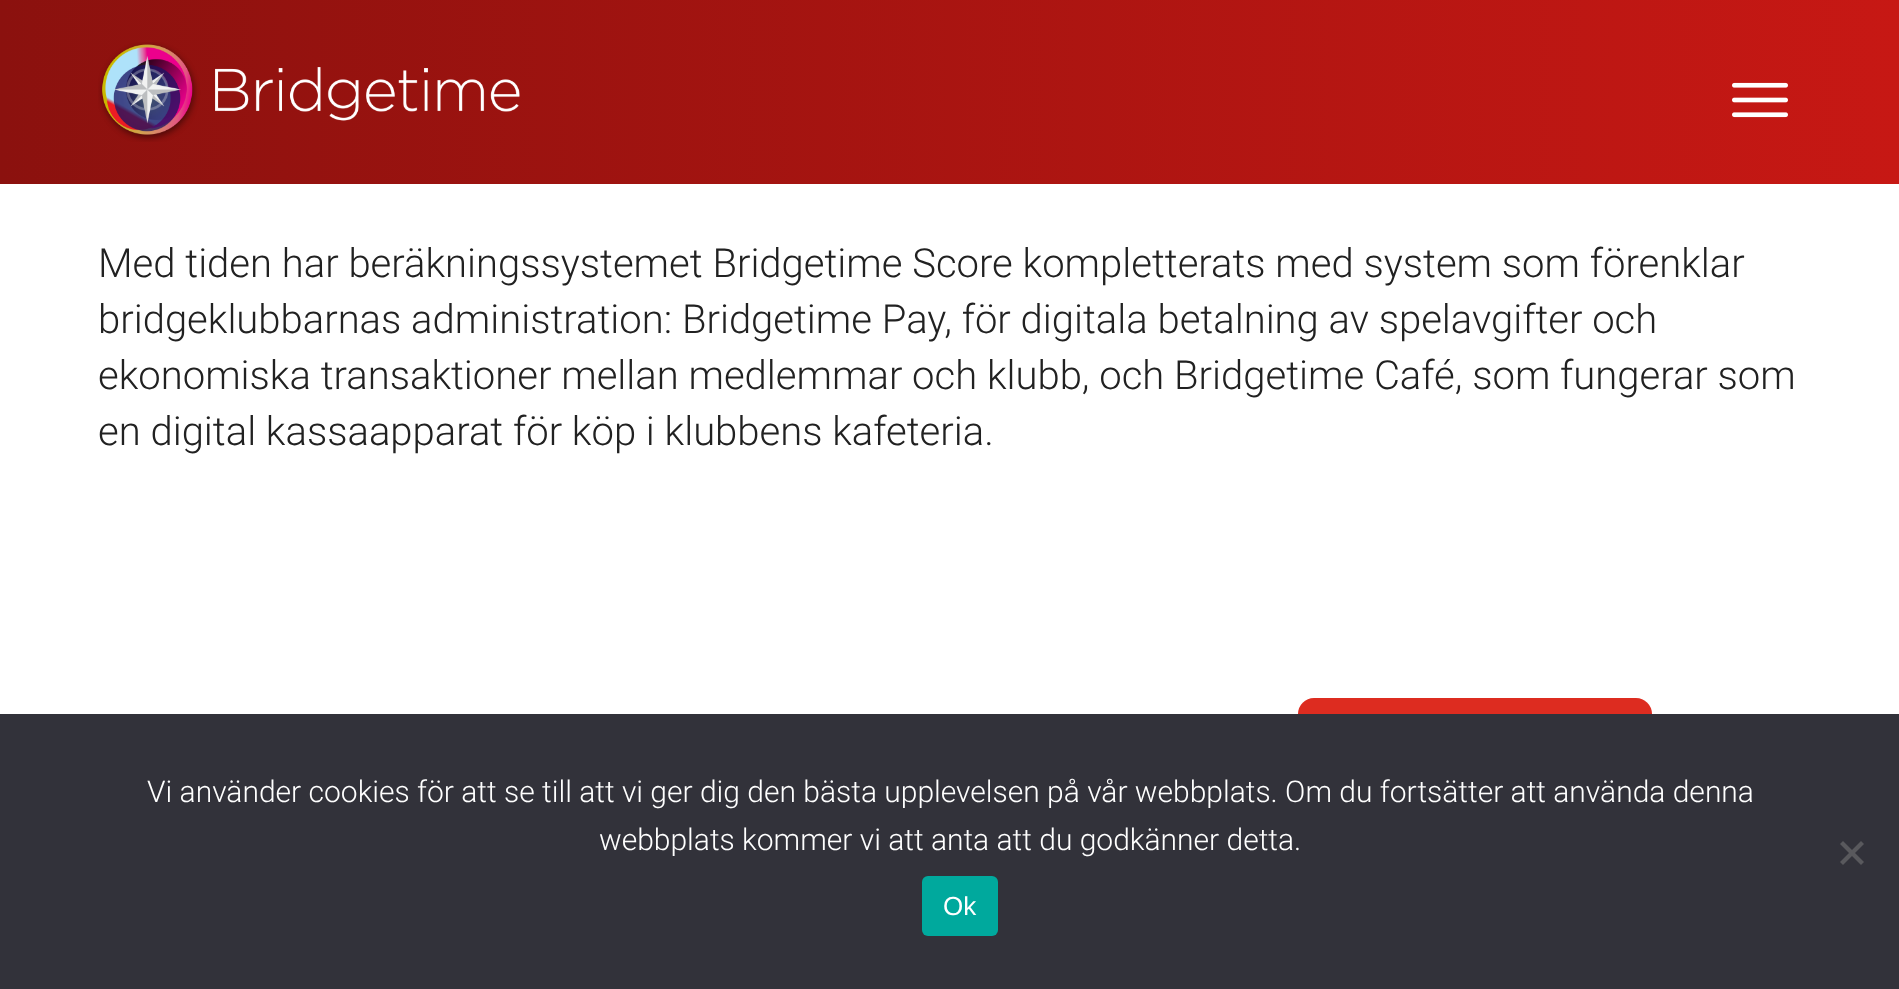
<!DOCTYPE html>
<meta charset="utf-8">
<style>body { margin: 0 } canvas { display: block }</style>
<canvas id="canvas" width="1899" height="989"></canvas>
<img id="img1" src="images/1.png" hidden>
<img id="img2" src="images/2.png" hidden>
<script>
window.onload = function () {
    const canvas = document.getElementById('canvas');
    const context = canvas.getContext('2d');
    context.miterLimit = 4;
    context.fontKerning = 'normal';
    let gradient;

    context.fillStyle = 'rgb(255, 255, 255)';
    context.fillRect(0, 0, 1899, 989);
    gradient = context.createLinearGradient(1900, 92, 0, 92);
    gradient.addColorStop(0, 'rgb(199, 24, 20)');
    gradient.addColorStop(1, 'rgb(139, 17, 14)');
    context.fillStyle = gradient;
    context.fillRect(0, 0, 1899, 184);
    context.drawImage(document.getElementById('img1'), 98, 42, 422, 100);
    context.drawImage(document.getElementById('img2'), 1732, 82, 56, 36);
    context.fillStyle = 'rgb(221, 44, 32)';
    context.beginPath();
    context.roundRect(1298, 698, 354, 84, 16);
    context.fill();
    context.fillStyle = 'rgb(50, 50, 58)';
    context.fillRect(0, 714, 1899, 275);
    context.fillStyle = 'rgb(89, 89, 93)';
    context.beginPath();
    context.moveTo(1861, 841);
    context.lineTo(1864, 844);
    context.lineTo(1843, 865);
    context.lineTo(1840, 862);
    context.closePath();
    context.fill();
    context.beginPath();
    context.moveTo(1840, 844);
    context.lineTo(1843, 841);
    context.lineTo(1864, 862);
    context.lineTo(1861, 865);
    context.closePath();
    context.fill();
    context.fillStyle = 'rgb(0, 169, 157)';
    context.beginPath();
    context.roundRect(922, 876, 76, 60, 6);
    context.fill();
    context.font = '300 40px Roboto';
    context.fillStyle = 'rgb(33, 33, 33)';
    context.fillText('Med tiden har beräkningssystemet Bridgetime Score kompletterats med system som förenklar', 98, 277);
    context.fillText('bridgeklubbarnas administration: Bridgetime Pay, för digitala betalning av spelavgifter och', 98, 333);
    context.fillText('ekonomiska transaktioner mellan medlemmar och klubb, och Bridgetime Café, som fungerar som', 98, 389);
    context.fillText('en digital kassaapparat för köp i klubbens kafeteria.', 98, 445);
    context.font = '300 30px Roboto';
    context.fillStyle = 'rgb(255, 255, 255)';
    context.fillText('Vi använder cookies för att se till att vi ger dig den bästa upplevelsen på vår webbplats. Om du fortsätter att använda denna', 147, 802);
    context.fillText('webbplats kommer vi att anta att du godkänner detta.', 599, 850);
    context.font = '26px Liberation Sans';
    context.fillText('Ok', 943, 915);
};
</script>
